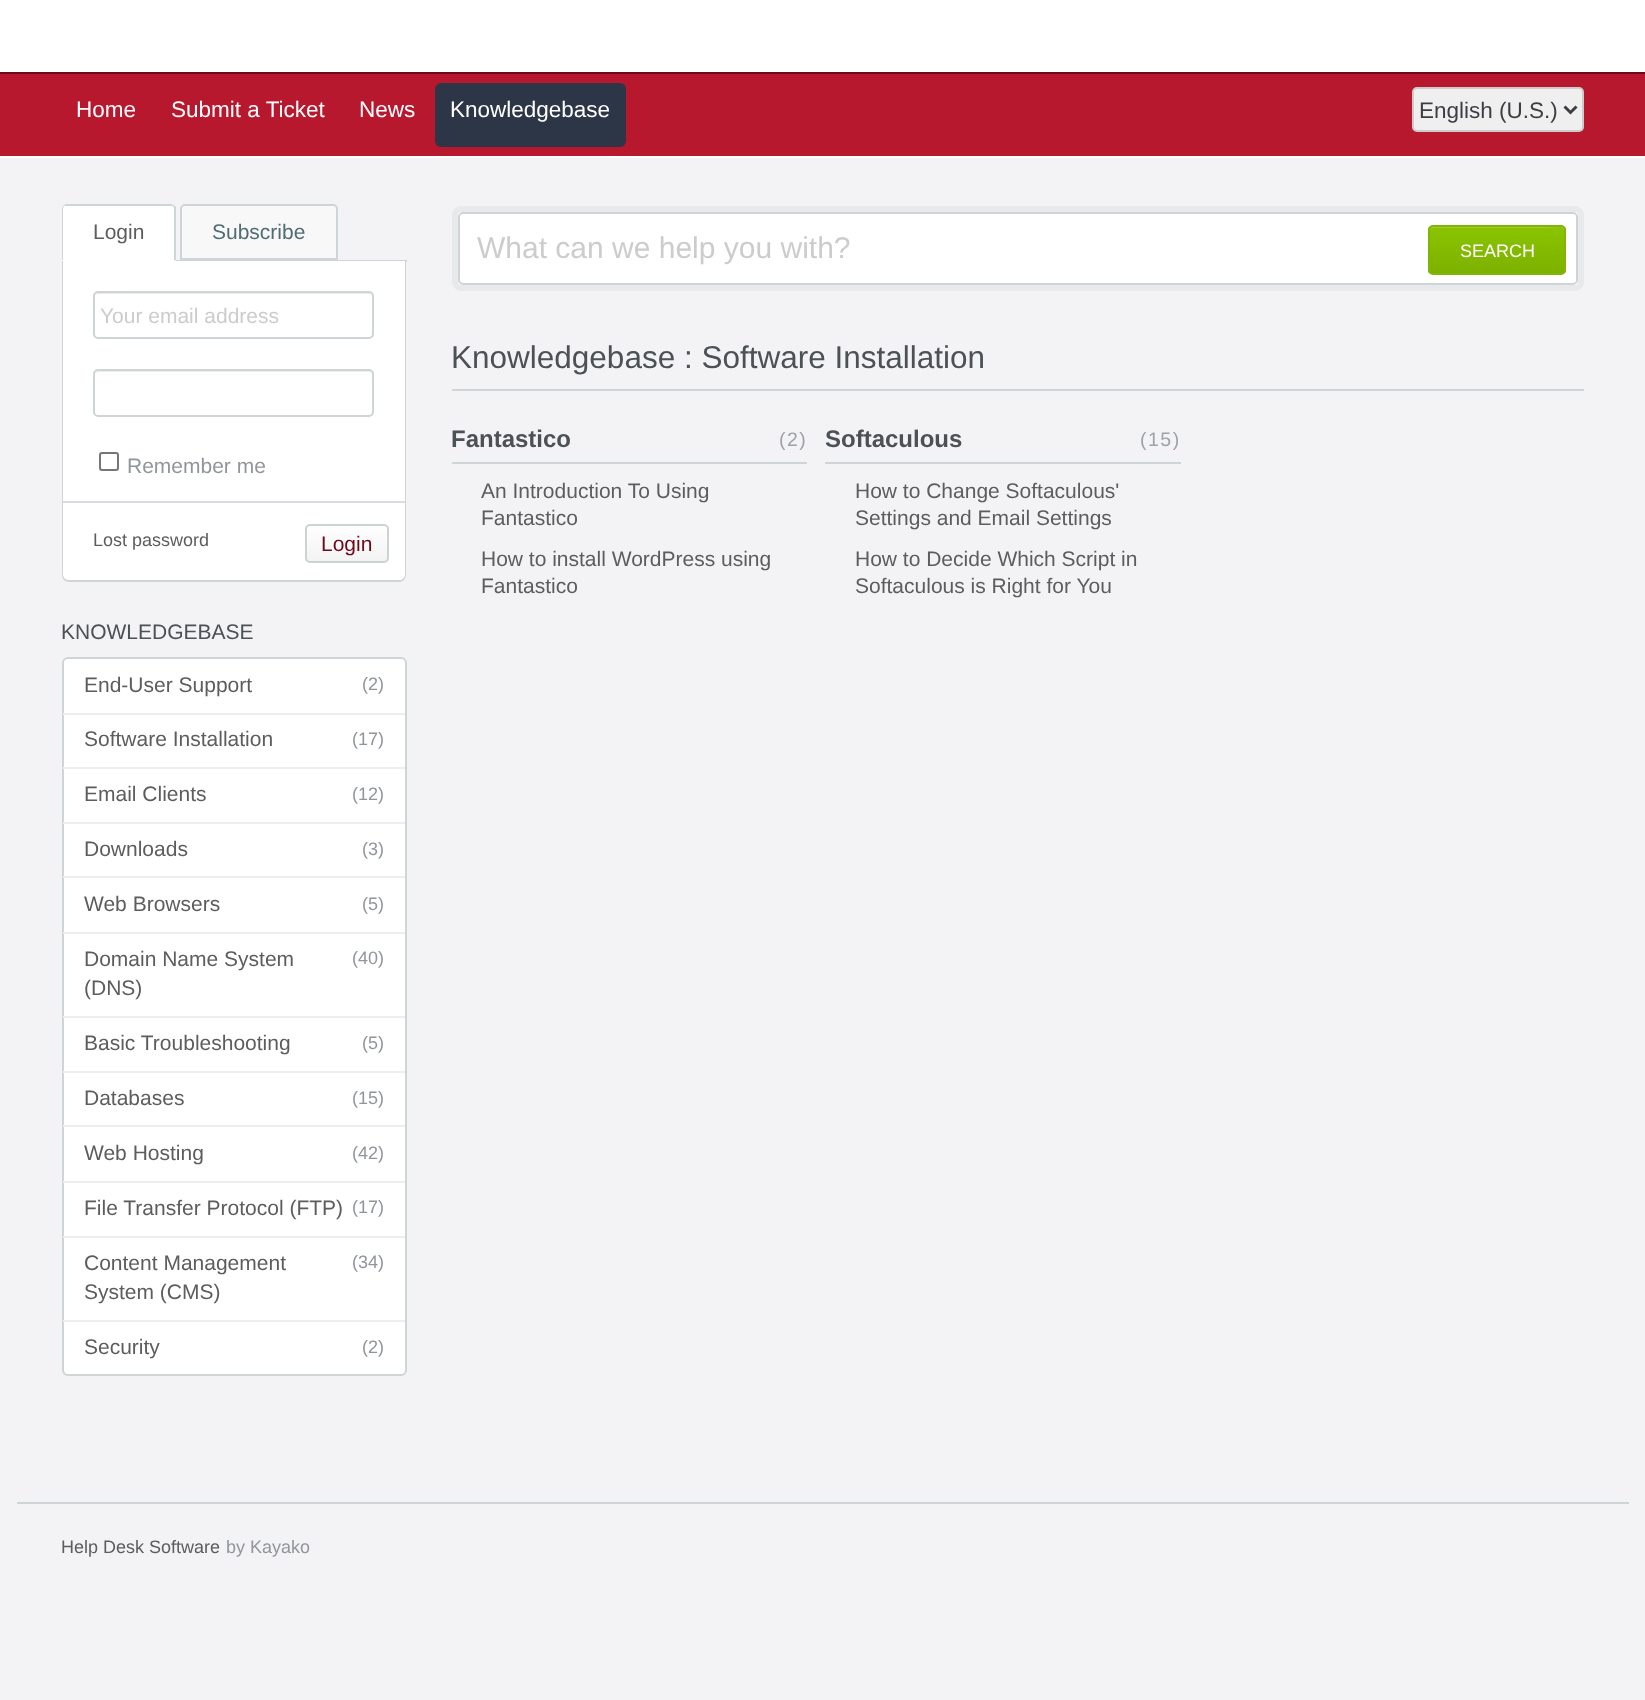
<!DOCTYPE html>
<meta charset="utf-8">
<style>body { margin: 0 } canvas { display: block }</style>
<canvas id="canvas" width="1645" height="1700"></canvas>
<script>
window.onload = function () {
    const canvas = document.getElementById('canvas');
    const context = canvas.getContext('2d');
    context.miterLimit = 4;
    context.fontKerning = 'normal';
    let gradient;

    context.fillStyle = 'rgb(243, 243, 245)';
    context.fillRect(0, 0, 1645, 1700);
    context.fillStyle = 'rgb(255, 255, 255)';
    context.fillRect(0, 0, 1645, 72);
    context.fillStyle = 'rgb(183, 24, 46)';
    context.fillRect(0, 74, 1645, 82);
    context.fillStyle = 'rgb(111, 8, 26)';
    context.fillRect(0, 72, 1645, 2);
    context.fillStyle = 'rgb(255, 255, 255)';
    context.fillRect(0, 156, 1645, 2);
    context.fillStyle = 'rgb(45, 54, 70)';
    context.beginPath();
    context.roundRect(435, 83, 191, 64, 6);
    context.fill();
    context.fillStyle = 'rgb(239, 239, 239)';
    context.beginPath();
    context.roundRect(1413, 88, 170, 43, 4);
    context.fill();
    context.strokeStyle = 'rgb(204, 204, 204)';
    context.lineWidth = 2;
    context.stroke();
    context.beginPath();
    context.moveTo(1564.5, 106.5);
    context.lineTo(1570.5, 112.5);
    context.lineTo(1576.5, 106.5);
    context.strokeStyle = 'rgb(60, 62, 67)';
    context.lineWidth = 3;
    context.stroke();
    context.fillStyle = 'rgb(207, 212, 214)';
    context.fillRect(176, 260, 231, 2);
    context.fillStyle = 'rgb(255, 255, 255)';
    context.beginPath();
    context.roundRect(62, 204, 114, 57, [5, 5, 0, 0]);
    context.fill();
    context.fillStyle = 'rgb(207, 212, 214)';
    context.beginPath();
    context.moveTo(66, 204);
    context.bezierCurveTo(65, 204, 64, 205, 63, 206);
    context.lineTo(64, 206);
    context.bezierCurveTo(65, 206, 172, 206, 173, 206);
    context.lineTo(174, 205);
    context.lineTo(171, 204);
    context.closePath();
    context.fill();
    context.beginPath();
    context.moveTo(176, 207);
    context.lineTo(176, 261);
    context.lineTo(174, 260);
    context.lineTo(174, 208);
    context.lineTo(173, 206);
    context.lineTo(174, 205);
    context.closePath();
    context.fill();
    context.fillStyle = 'rgb(255, 255, 255)';
    context.beginPath();
    context.moveTo(176, 261);
    context.lineTo(174, 260);
    context.lineTo(63, 260);
    context.lineTo(62, 261);
    context.closePath();
    context.fill();
    context.fillStyle = 'rgb(207, 212, 214)';
    context.beginPath();
    context.moveTo(63, 206);
    context.lineTo(62, 208);
    context.lineTo(62, 260);
    context.lineTo(63, 260);
    context.lineTo(63, 208);
    context.lineTo(64, 206);
    context.closePath();
    context.fill();
    context.fillStyle = 'rgb(248, 248, 248)';
    context.beginPath();
    context.roundRect(181, 205, 156, 54, [4, 4, 0, 0]);
    context.fill();
    context.strokeStyle = 'rgb(207, 212, 214)';
    context.lineWidth = 2;
    context.stroke();
    context.fillStyle = 'rgb(255, 255, 255)';
    context.beginPath();
    context.roundRect(63, 261, 342, 320, [0, 0, 6, 6]);
    context.fill();
    context.fillStyle = 'rgb(207, 212, 214)';
    context.beginPath();
    context.moveTo(62, 261);
    context.lineTo(406, 261);
    context.lineTo(406, 574);
    context.bezierCurveTo(406, 579, 403, 582, 399, 582);
    context.lineTo(69, 582);
    context.bezierCurveTo(65, 582, 62, 579, 62, 574);
    context.closePath();
    context.moveTo(63, 261);
    context.lineTo(405, 261);
    context.lineTo(405, 574);
    context.bezierCurveTo(405, 578, 402, 580, 399, 580);
    context.lineTo(69, 580);
    context.bezierCurveTo(66, 580, 63, 578, 63, 574);
    context.closePath();
    context.fill('evenodd');
    context.fillStyle = 'rgb(236, 236, 236)';
    context.beginPath();
    context.moveTo(98, 294);
    context.lineTo(369, 294);
    context.bezierCurveTo(371, 294, 372, 295, 372, 297);
    context.lineTo(372, 296);
    context.bezierCurveTo(372, 294, 371, 293, 369, 293);
    context.lineTo(98, 293);
    context.bezierCurveTo(97, 293, 96, 294, 95, 295);
    context.closePath();
    context.fill();
    context.beginPath();
    context.roundRect(94, 292, 279, 46, 4);
    context.stroke();
    context.beginPath();
    context.moveTo(98, 372);
    context.lineTo(369, 372);
    context.bezierCurveTo(371, 372, 372, 373, 372, 375);
    context.lineTo(372, 374);
    context.bezierCurveTo(372, 372, 371, 371, 369, 371);
    context.lineTo(98, 371);
    context.bezierCurveTo(97, 371, 96, 372, 95, 373);
    context.closePath();
    context.fill();
    context.beginPath();
    context.roundRect(94, 370, 279, 46, 4);
    context.stroke();
    context.beginPath();
    context.roundRect(100, 453, 18, 17, 2);
    context.strokeStyle = 'rgb(118, 118, 118)';
    context.stroke();
    context.fillStyle = 'rgb(216, 219, 223)';
    context.fillRect(63, 501, 342, 2);
    context.save();
    context.beginPath();
    context.roundRect(305, 524, 84, 39, 5);
    context.clip();
    gradient = context.createLinearGradient(306, 525, 306, 561);
    gradient.addColorStop(0, 'rgb(255, 255, 255)');
    gradient.addColorStop(1, 'rgb(243, 243, 243)');
    context.fillStyle = gradient;
    context.fillRect(305, 525, 84, 36);
    context.restore();
    context.beginPath();
    context.roundRect(306, 525, 82, 37, 4);
    context.strokeStyle = 'rgb(205, 210, 212)';
    context.stroke();
    context.fillStyle = 'rgb(255, 255, 255)';
    context.beginPath();
    context.roundRect(63, 658, 343, 717, 5);
    context.fill();
    context.strokeStyle = 'rgb(207, 212, 214)';
    context.stroke();
    context.fillStyle = 'rgb(238, 238, 238)';
    context.fillRect(63, 713, 342, 2);
    context.fillRect(63, 767, 342, 2);
    context.fillRect(63, 822, 342, 2);
    context.fillRect(63, 876, 342, 2);
    context.fillRect(63, 932, 342, 2);
    context.fillRect(63, 1016, 342, 2);
    context.fillRect(63, 1071, 342, 2);
    context.fillRect(63, 1125, 342, 2);
    context.fillRect(63, 1181, 342, 2);
    context.fillRect(63, 1236, 342, 2);
    context.fillRect(63, 1320, 342, 2);
    context.fillStyle = 'rgb(255, 255, 255)';
    context.beginPath();
    context.roundRect(455, 209, 1126, 79, 6);
    context.fill();
    context.strokeStyle = 'rgb(232, 233, 235)';
    context.lineWidth = 6;
    context.stroke();
    context.beginPath();
    context.roundRect(459, 213, 1118, 71, 4);
    context.strokeStyle = 'rgb(207, 212, 214)';
    context.lineWidth = 2;
    context.stroke();
    context.save();
    context.beginPath();
    context.roundRect(1428, 225, 138, 50, 5);
    context.clip();
    gradient = context.createLinearGradient(1430, 227, 1430, 273);
    gradient.addColorStop(0, 'rgb(138, 196, 0)');
    gradient.addColorStop(1, 'rgb(125, 177, 0)');
    context.fillStyle = gradient;
    context.fillRect(1428, 227, 138, 46);
    context.restore();
    context.fillStyle = 'rgba(255, 255, 255, 0.2)';
    context.beginPath();
    context.moveTo(1432, 228);
    context.lineTo(1540, 228);
    context.bezierCurveTo(1567, 228, 1564, 222, 1564, 245);
    context.lineTo(1564, 272);
    context.bezierCurveTo(1565, 272, 1565, 271, 1565, 270);
    context.lineTo(1565, 230);
    context.bezierCurveTo(1565, 228, 1564, 227, 1562, 227);
    context.lineTo(1433, 227);
    context.bezierCurveTo(1431, 227, 1430, 228, 1430, 230);
    context.lineTo(1430, 231);
    context.bezierCurveTo(1430, 229, 1431, 228, 1432, 228);
    context.closePath();
    context.fill();
    context.beginPath();
    context.roundRect(1429, 226, 136, 48, 4);
    context.strokeStyle = 'rgb(128, 181, 6)';
    context.stroke();
    context.fillStyle = 'rgb(207, 212, 214)';
    context.fillRect(452, 389, 1132, 2);
    context.fillRect(452, 462, 355, 2);
    context.fillRect(825, 462, 356, 2);
    context.fillRect(17, 1502, 1612, 2);
    context.font = '22.5px Liberation Sans';
    context.fillStyle = 'rgb(255, 255, 255)';
    context.fillText('Home', 76, 117);
    context.fillText('Submit a Ticket', 171, 117);
    context.fillText('News', 359, 117);
    context.fillText('Knowledgebase', 450, 117);
    context.fillStyle = 'rgb(60, 62, 67)';
    context.fillText('English (U.S.)', 1419, 118);
    context.font = '21px Liberation Sans';
    context.fillStyle = 'rgb(93, 93, 93)';
    context.fillText('Login', 93, 239);
    context.fillStyle = 'rgb(80, 108, 116)';
    context.fillText('Subscribe', 212, 239);
    context.fillStyle = 'rgb(204, 204, 204)';
    context.fillText('Your email address', 100, 323);
    context.fillStyle = 'rgb(146, 150, 155)';
    context.fillText('Remember me', 127, 473);
    context.font = '18px Liberation Sans';
    context.fillStyle = 'rgb(93, 93, 93)';
    context.fillText('Lost password', 93, 546);
    context.font = '21px Liberation Sans';
    context.fillStyle = 'rgb(111, 8, 26)';
    context.fillText('Login', 321, 551);
    context.fillStyle = 'rgb(76, 81, 86)';
    context.fillText('KNOWLEDGEBASE', 61, 639);
    context.fillStyle = 'rgb(93, 93, 93)';
    context.fillText('End-User Support', 84, 692);
    context.font = '18px Liberation Sans';
    context.fillStyle = 'rgb(146, 150, 155)';
    context.fillText('(2)', 362, 690);
    context.font = '21px Liberation Sans';
    context.fillStyle = 'rgb(93, 93, 93)';
    context.fillText('Software Installation', 84, 746);
    context.font = '18px Liberation Sans';
    context.fillStyle = 'rgb(146, 150, 155)';
    context.fillText('(17)', 352, 745);
    context.font = '21px Liberation Sans';
    context.fillStyle = 'rgb(93, 93, 93)';
    context.fillText('Email Clients', 84, 801);
    context.font = '18px Liberation Sans';
    context.fillStyle = 'rgb(146, 150, 155)';
    context.fillText('(12)', 352, 800);
    context.font = '21px Liberation Sans';
    context.fillStyle = 'rgb(93, 93, 93)';
    context.fillText('Downloads', 84, 856);
    context.font = '18px Liberation Sans';
    context.fillStyle = 'rgb(146, 150, 155)';
    context.fillText('(3)', 362, 855);
    context.font = '21px Liberation Sans';
    context.fillStyle = 'rgb(93, 93, 93)';
    context.fillText('Web Browsers', 84, 911);
    context.font = '18px Liberation Sans';
    context.fillStyle = 'rgb(146, 150, 155)';
    context.fillText('(5)', 362, 910);
    context.font = '21px Liberation Sans';
    context.fillStyle = 'rgb(93, 93, 93)';
    context.fillText('Domain Name System', 84, 966);
    context.font = '18px Liberation Sans';
    context.fillStyle = 'rgb(146, 150, 155)';
    context.fillText('(40)', 352, 964);
    context.font = '21px Liberation Sans';
    context.fillStyle = 'rgb(93, 93, 93)';
    context.fillText('(DNS)', 84, 995);
    context.fillText('Basic Troubleshooting', 84, 1050);
    context.font = '18px Liberation Sans';
    context.fillStyle = 'rgb(146, 150, 155)';
    context.fillText('(5)', 362, 1049);
    context.font = '21px Liberation Sans';
    context.fillStyle = 'rgb(93, 93, 93)';
    context.fillText('Databases', 84, 1105);
    context.font = '18px Liberation Sans';
    context.fillStyle = 'rgb(146, 150, 155)';
    context.fillText('(15)', 352, 1104);
    context.font = '21px Liberation Sans';
    context.fillStyle = 'rgb(93, 93, 93)';
    context.fillText('Web Hosting', 84, 1160);
    context.font = '18px Liberation Sans';
    context.fillStyle = 'rgb(146, 150, 155)';
    context.fillText('(42)', 352, 1159);
    context.font = '21px Liberation Sans';
    context.fillStyle = 'rgb(93, 93, 93)';
    context.fillText('File Transfer Protocol (FTP)', 84, 1215);
    context.font = '18px Liberation Sans';
    context.fillStyle = 'rgb(146, 150, 155)';
    context.fillText('(17)', 352, 1213);
    context.font = '21px Liberation Sans';
    context.fillStyle = 'rgb(93, 93, 93)';
    context.fillText('Content Management', 84, 1270);
    context.font = '18px Liberation Sans';
    context.fillStyle = 'rgb(146, 150, 155)';
    context.fillText('(34)', 352, 1268);
    context.font = '21px Liberation Sans';
    context.fillStyle = 'rgb(93, 93, 93)';
    context.fillText('System (CMS)', 84, 1299);
    context.fillText('Security', 84, 1354);
    context.font = '18px Liberation Sans';
    context.fillStyle = 'rgb(146, 150, 155)';
    context.fillText('(2)', 362, 1353);
    context.font = '30px Liberation Sans';
    context.fillStyle = 'rgb(204, 204, 204)';
    context.fillText('What can we help you with?', 477, 258);
    context.font = '18px Liberation Sans';
    context.fillStyle = 'rgb(255, 255, 255)';
    context.fillText('SEARCH', 1460, 257);
    context.font = '31.5px Liberation Sans';
    context.fillStyle = 'rgb(76, 81, 86)';
    context.fillText('Knowledgebase : Software Installation', 451, 368);
    context.font = 'bold 24px Liberation Sans';
    context.fillText('Fantastico', 451, 447);
    context.letterSpacing = '1.5px';
    context.font = '19.5px Liberation Sans';
    context.fillStyle = 'rgb(159, 163, 168)';
    context.fillText('(2)', 779, 446);
    context.letterSpacing = '0px';
    context.font = '21px Liberation Sans';
    context.fillStyle = 'rgb(93, 93, 93)';
    context.fillText('An Introduction To Using', 481, 498);
    context.fillText('Fantastico', 481, 525);
    context.fillText('How to install WordPress using', 481, 566);
    context.fillText('Fantastico', 481, 593);
    context.font = 'bold 24px Liberation Sans';
    context.fillStyle = 'rgb(76, 81, 86)';
    context.fillText('Softaculous', 825, 447);
    context.letterSpacing = '1.5px';
    context.font = '19.5px Liberation Sans';
    context.fillStyle = 'rgb(159, 163, 168)';
    context.fillText('(15)', 1140, 446);
    context.letterSpacing = '0px';
    context.font = '21px Liberation Sans';
    context.fillStyle = 'rgb(93, 93, 93)';
    context.fillText('How to Change Softaculous\'', 855, 498);
    context.fillText('Settings and Email Settings', 855, 525);
    context.fillText('How to Decide Which Script in', 855, 566);
    context.fillText('Softaculous is Right for You', 855, 593);
    context.font = '18px Liberation Sans';
    context.fillText('Help Desk Software', 61, 1553);
    context.fillStyle = 'rgb(146, 150, 155)';
    context.fillText('by Kayako', 226, 1553);
};
</script>
